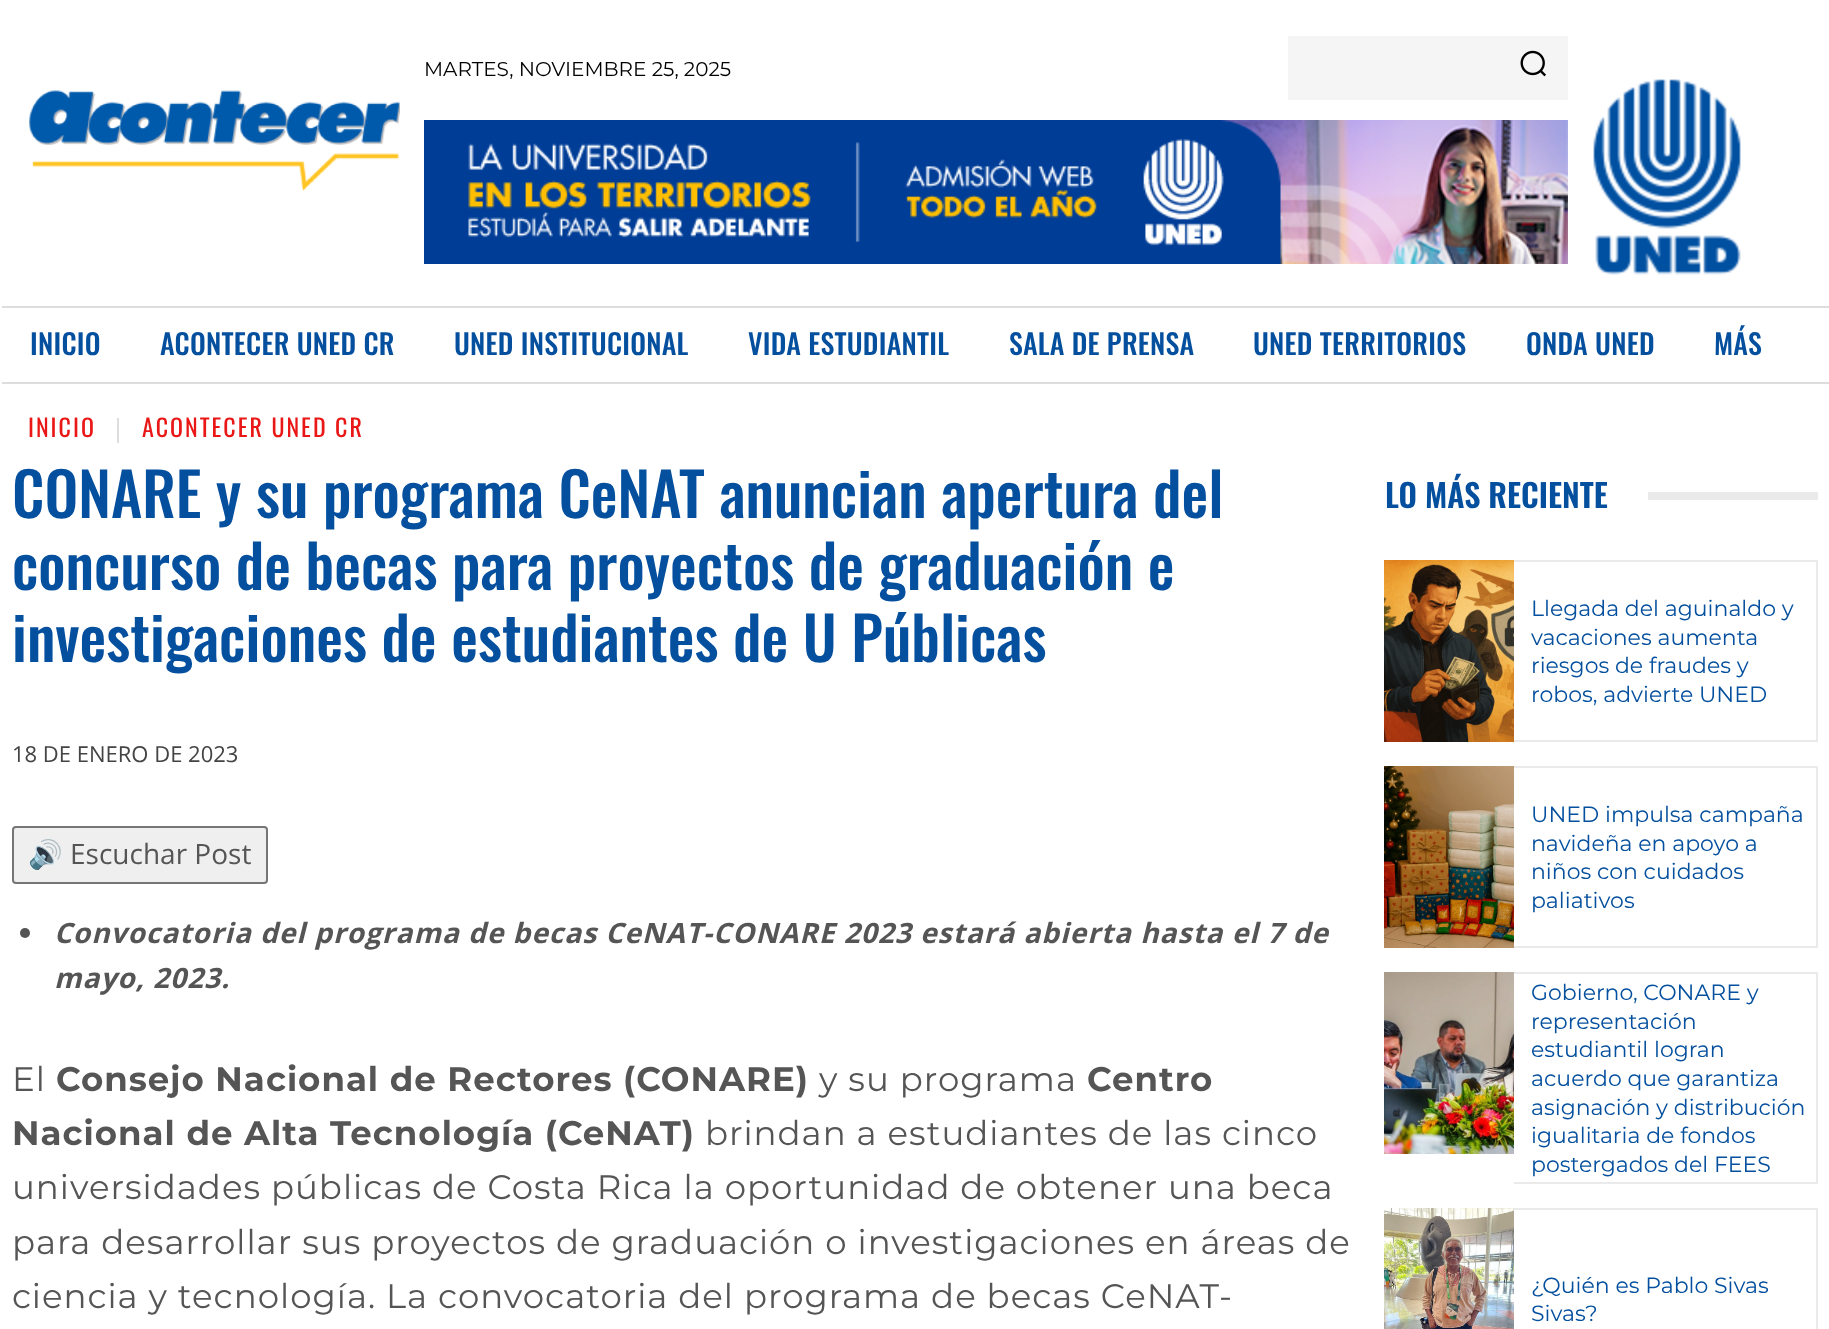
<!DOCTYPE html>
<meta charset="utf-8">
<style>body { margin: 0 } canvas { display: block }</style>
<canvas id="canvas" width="1829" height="1329"></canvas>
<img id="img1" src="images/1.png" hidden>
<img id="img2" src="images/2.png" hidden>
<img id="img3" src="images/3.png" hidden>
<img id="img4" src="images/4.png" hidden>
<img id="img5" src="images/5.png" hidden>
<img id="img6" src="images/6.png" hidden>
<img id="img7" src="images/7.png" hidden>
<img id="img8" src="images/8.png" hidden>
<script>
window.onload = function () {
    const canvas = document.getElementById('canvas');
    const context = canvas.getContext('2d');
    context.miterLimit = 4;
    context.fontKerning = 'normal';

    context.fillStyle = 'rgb(255, 255, 255)';
    context.fillRect(0, 0, 1829, 1329);
    context.fillStyle = 'rgb(245, 245, 245)';
    context.fillRect(1288, 36, 280, 64);
    context.drawImage(document.getElementById('img1'), 1520, 50, 26, 27);
    context.drawImage(document.getElementById('img2'), 424, 120, 1144, 144);
    context.drawImage(document.getElementById('img3'), 29, 90, 371, 101);
    context.drawImage(document.getElementById('img4'), 1593, 79, 148, 196);
    context.fillStyle = 'rgb(221, 221, 221)';
    context.fillRect(2, 306, 1827, 2);
    context.fillRect(2, 382, 1827, 2);
    context.fillRect(117, 418, 2, 25);
    context.fillStyle = 'rgb(239, 239, 239)';
    context.beginPath();
    context.roundRect(13, 827, 254, 56, 3);
    context.fill();
    context.strokeStyle = 'rgb(118, 118, 118)';
    context.lineWidth = 2;
    context.stroke();
    context.fillStyle = 'rgb(85, 85, 85)';
    context.beginPath();
    context.arc(25, 933, 5, 0, 2 * Math.PI);
    context.fill();
    context.fillStyle = 'rgb(234, 234, 234)';
    context.fillRect(1648, 492, 170, 8);
    context.drawImage(document.getElementById('img5'), 1384, 560, 130, 182);
    context.fillRect(1514, 560, 304, 2);
    context.fillRect(1816, 560, 2, 182);
    context.fillRect(1514, 740, 304, 2);
    context.drawImage(document.getElementById('img6'), 1384, 766, 130, 182);
    context.fillRect(1514, 766, 304, 2);
    context.fillRect(1816, 766, 2, 182);
    context.fillRect(1514, 946, 304, 2);
    context.drawImage(document.getElementById('img7'), 1384, 972, 130, 182);
    context.fillRect(1514, 972, 304, 2);
    context.fillRect(1816, 972, 2, 212);
    context.fillRect(1514, 1182, 304, 2);
    context.drawImage(document.getElementById('img8'), 1384, 1208, 130, 121);
    context.fillRect(1514, 1208, 304, 2);
    context.fillRect(1816, 1208, 2, 121);
    context.font = '20px Montserrat';
    context.fillStyle = 'rgb(0, 0, 0)';
    context.fillText('MARTES, NOVIEMBRE 25, 2025', 424, 76);
    context.letterSpacing = '0.25px';
    context.font = '500 28px Oswald';
    context.fillStyle = 'rgb(4, 79, 158)';
    context.fillText('INICIO', 30, 355);
    context.fillText('ACONTECER UNED CR', 160, 355);
    context.fillText('UNED INSTITUCIONAL', 454, 355);
    context.fillText('VIDA ESTUDIANTIL', 748, 355);
    context.fillText('SALA DE PRENSA', 1009, 355);
    context.fillText('UNED TERRITORIOS', 1253, 355);
    context.fillText('ONDA UNED', 1526, 355);
    context.fillText('MÁS', 1714, 355);
    context.letterSpacing = '2px';
    context.font = '24px Oswald';
    context.fillStyle = 'rgb(234, 23, 23)';
    context.fillText('INICIO', 28, 437);
    context.fillText('ACONTECER UNED CR', 142, 437);
    context.letterSpacing = '0px';
    context.font = '500 60px Oswald';
    context.fillStyle = 'rgb(4, 79, 158)';
    context.fillText('CONARE y su programa CeNAT anuncian apertura del', 12, 518);
    context.fillText('concurso de becas para proyectos de graduación e', 12, 590);
    context.fillText('investigaciones de estudiantes de U Públicas', 12, 662);
    context.font = '22px Open Sans';
    context.fillStyle = 'rgb(68, 68, 68)';
    context.fillText('18 DE ENERO DE 2023', 12, 762);
    context.font = '28px Noto Color Emoji';
    context.fillStyle = 'rgb(85, 85, 85)';
    context.fillText('🔊', 28, 864);
    context.font = '28px Open Sans';
    context.fillText('Escuchar Post', 70, 864);
    context.letterSpacing = '1px';
    context.font = 'italic bold 28px Open Sans';
    context.fillText('Convocatoria del programa de becas CeNAT-CONARE 2023 estará abierta hasta el 7 de', 54, 943);
    context.fillText('mayo, 2023.', 54, 988);
    context.font = '34px Montserrat';
    context.fillText('El', 12, 1091);
    context.font = 'bold 34px Montserrat';
    context.fillText('Consejo Nacional de Rectores (CONARE)', 56, 1091);
    context.font = '34px Montserrat';
    context.fillText('y su programa', 819, 1091);
    context.font = 'bold 34px Montserrat';
    context.fillText('Centro', 1087, 1091);
    context.fillText('Nacional de Alta Tecnología (CeNAT)', 12, 1145);
    context.font = '34px Montserrat';
    context.fillText('brindan a estudiantes de las cinco', 705, 1145);
    context.fillText('universidades públicas de Costa Rica la oportunidad de obtener una beca', 12, 1199);
    context.fillText('para desarrollar sus proyectos de graduación o investigaciones en áreas de', 12, 1254);
    context.fillText('ciencia y tecnología. La convocatoria del programa de becas CeNAT-', 12, 1308);
    context.letterSpacing = '0px';
    context.font = '600 32px Oswald';
    context.fillStyle = 'rgb(4, 79, 158)';
    context.fillText('LO MÁS RECIENTE', 1385, 508);
    context.font = '22px Montserrat';
    context.fillText('Llegada del aguinaldo y', 1531, 616);
    context.fillText('vacaciones aumenta', 1531, 645);
    context.fillText('riesgos de fraudes y', 1531, 673);
    context.fillText('robos, advierte UNED', 1531, 702);
    context.fillText('UNED impulsa campaña', 1531, 822);
    context.fillText('navideña en apoyo a', 1531, 851);
    context.fillText('niños con cuidados', 1531, 879);
    context.fillText('paliativos', 1531, 908);
    context.fillText('Gobierno, CONARE y', 1531, 1000);
    context.fillText('representación', 1531, 1029);
    context.fillText('estudiantil logran', 1531, 1057);
    context.fillText('acuerdo que garantiza', 1531, 1086);
    context.fillText('asignación y distribución', 1531, 1115);
    context.fillText('igualitaria de fondos', 1531, 1143);
    context.fillText('postergados del FEES', 1531, 1172);
    context.fillText('¿Quién es Pablo Sivas', 1531, 1293);
    context.fillText('Sivas?', 1531, 1321);
};
</script>
